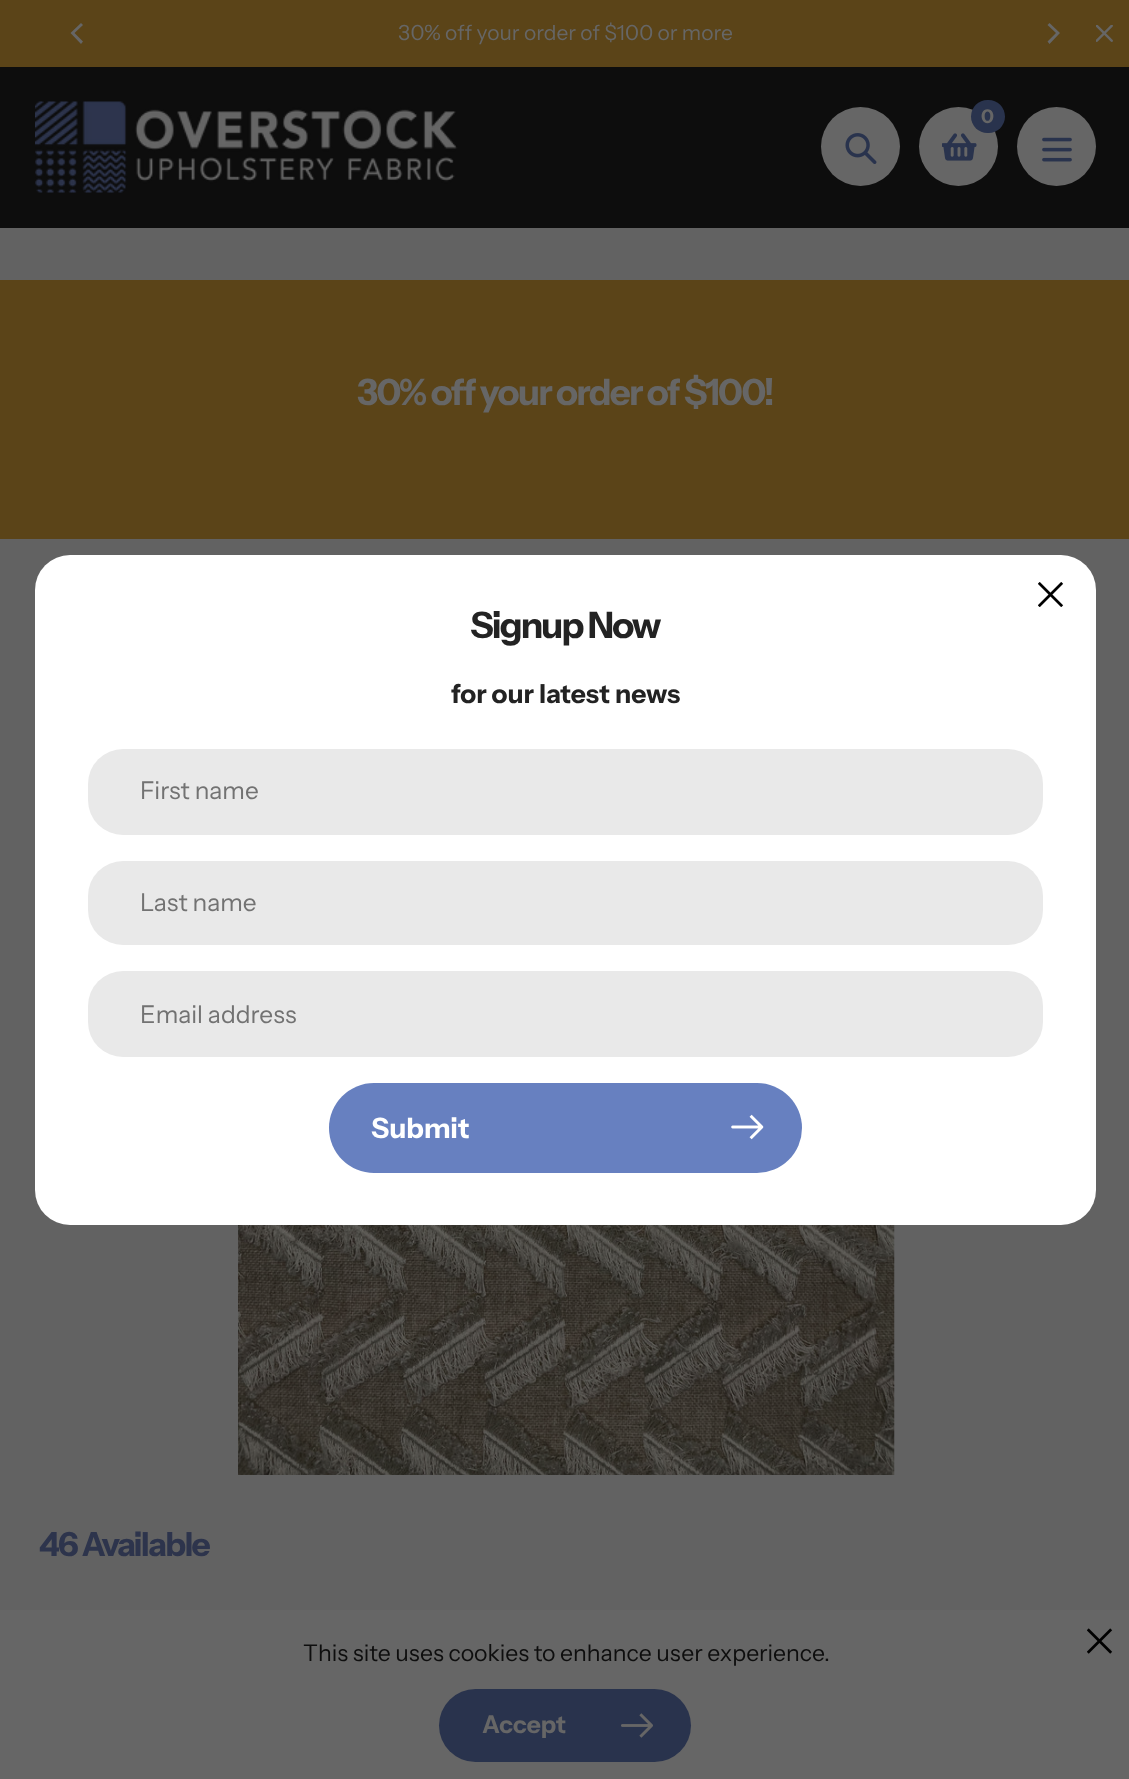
<!DOCTYPE html>
<meta charset="utf-8">
<style>body { margin: 0 } canvas { display: block }</style>
<canvas id="canvas" width="1129" height="1779"></canvas>
<img id="img1" src="images/1.png" hidden>
<img id="img2" src="images/2.png" hidden>
<img id="img3" src="images/3.png" hidden>
<img id="img4" src="images/4.png" hidden>
<img id="img5" src="images/5.png" hidden>
<img id="img6" src="images/6.png" hidden>
<img id="img7" src="images/7.png" hidden>
<img id="img8" src="images/8.png" hidden>
<img id="img9" src="images/9.png" hidden>
<img id="img10" src="images/10.png" hidden>
<script>
window.onload = function () {
    const canvas = document.getElementById('canvas');
    const context = canvas.getContext('2d');
    context.miterLimit = 4;
    context.fontKerning = 'normal';

    context.fillStyle = 'rgb(98, 98, 98)';
    context.fillRect(0, 0, 1129, 1779);
    context.fillStyle = 'rgb(91, 68, 24)';
    context.fillRect(0, 0, 1129, 67);
    context.fillStyle = 'rgb(102, 102, 102)';
    context.beginPath();
    context.moveTo(70.5, 33);
    context.lineTo(81, 44);
    context.lineTo(83, 41.5);
    context.lineTo(74.5, 33);
    context.lineTo(83, 25);
    context.lineTo(81, 23);
    context.closePath();
    context.fill();
    context.beginPath();
    context.moveTo(1060, 33);
    context.lineTo(1049.5, 23);
    context.lineTo(1047.5, 25);
    context.lineTo(1056, 33);
    context.lineTo(1047.5, 41.5);
    context.lineTo(1049.5, 44);
    context.closePath();
    context.fill();
    context.drawImage(document.getElementById('img1'), 1096, 25, 17, 17);
    context.fillStyle = 'rgb(13, 13, 13)';
    context.fillRect(0, 67, 1129, 161);
    context.drawImage(document.getElementById('img2'), 35, 101, 423, 92);
    context.fillStyle = 'rgb(102, 102, 102)';
    context.beginPath();
    context.arc(860.5, 146.5, 39.5, 0, 2 * Math.PI);
    context.fill();
    context.drawImage(document.getElementById('img3'), 845, 133, 32, 31);
    context.beginPath();
    context.arc(958.5, 146.5, 39.5, 0, 2 * Math.PI);
    context.fill();
    context.fillStyle = 'rgb(41, 51, 77)';
    context.beginPath();
    context.roundRect(971, 100, 34, 33, 16.5);
    context.fill();
    context.drawImage(document.getElementById('img4'), 942, 133, 35, 28);
    context.fillStyle = 'rgb(102, 102, 102)';
    context.beginPath();
    context.arc(1056.5, 146.5, 39.5, 0, 2 * Math.PI);
    context.fill();
    context.drawImage(document.getElementById('img5'), 1042, 137, 30, 25);
    context.fillStyle = 'rgb(91, 68, 24)';
    context.fillRect(0, 280, 1129, 259);
    context.drawImage(document.getElementById('img6'), 238, 1225, 657, 250);
    context.fillStyle = 'rgb(255, 255, 255)';
    context.beginPath();
    context.roundRect(35, 555, 1061, 670, 35);
    context.fill();
    context.drawImage(document.getElementById('img7'), 1038, 582, 26, 25);
    context.fillStyle = 'rgb(233, 233, 233)';
    context.beginPath();
    context.roundRect(88, 749, 955, 86, 35);
    context.fill();
    context.beginPath();
    context.roundRect(88, 861, 955, 84, 35);
    context.fill();
    context.beginPath();
    context.roundRect(88, 971, 955, 86, 35);
    context.fill();
    context.fillStyle = 'rgb(103, 128, 192)';
    context.beginPath();
    context.roundRect(329, 1083, 473, 90, 45);
    context.fill();
    context.drawImage(document.getElementById('img8'), 731, 1114, 33, 26);
    context.fillStyle = 'rgb(102, 102, 102)';
    context.fillRect(0, 1610, 1129, 169);
    context.drawImage(document.getElementById('img9'), 1087, 1628, 26, 26);
    context.fillStyle = 'rgb(41, 51, 77)';
    context.beginPath();
    context.roundRect(439, 1689, 252, 73, 36.5);
    context.fill();
    context.drawImage(document.getElementById('img10'), 621, 1713, 32, 25);
    context.font = '21px Instrument Sans';
    context.fillStyle = 'rgb(102, 102, 102)';
    context.fillText('30% off your order of $100 or more', 398, 40);
    context.font = 'bold 19px Instrument Sans';
    context.fillText('0', 981, 123);
    context.letterSpacing = '-1.75px';
    context.font = 'bold 36.4px Instrument Sans';
    context.fillText('30% off your order of $100!', 357, 405);
    context.font = 'bold 33.25px Instrument Sans';
    context.fillStyle = 'rgb(45, 52, 76)';
    context.fillText('46 Available', 39, 1556);
    context.font = 'bold 36.4px Instrument Sans';
    context.fillStyle = 'rgb(35, 35, 35)';
    context.fillText('Signup Now', 470, 638);
    context.letterSpacing = '0px';
    context.font = 'bold 26.25px Instrument Sans';
    context.fillText('for our latest news', 451, 703);
    context.font = '24.5px Instrument Sans';
    context.fillStyle = 'rgb(114, 114, 114)';
    context.fillText('First name', 140, 799);
    context.fillText('Last name', 140, 911);
    context.fillText('Email address', 140, 1023);
    context.font = 'bold 28px Instrument Sans';
    context.fillStyle = 'rgb(255, 255, 255)';
    context.fillText('Submit', 371, 1138);
    context.font = '23px Instrument Sans';
    context.fillStyle = 'rgb(14, 14, 14)';
    context.fillText('This site uses cookies to enhance user experience.', 303, 1661);
    context.font = 'bold 24.5px Instrument Sans';
    context.fillStyle = 'rgb(102, 102, 102)';
    context.fillText('Accept', 482, 1733);
};
</script>
